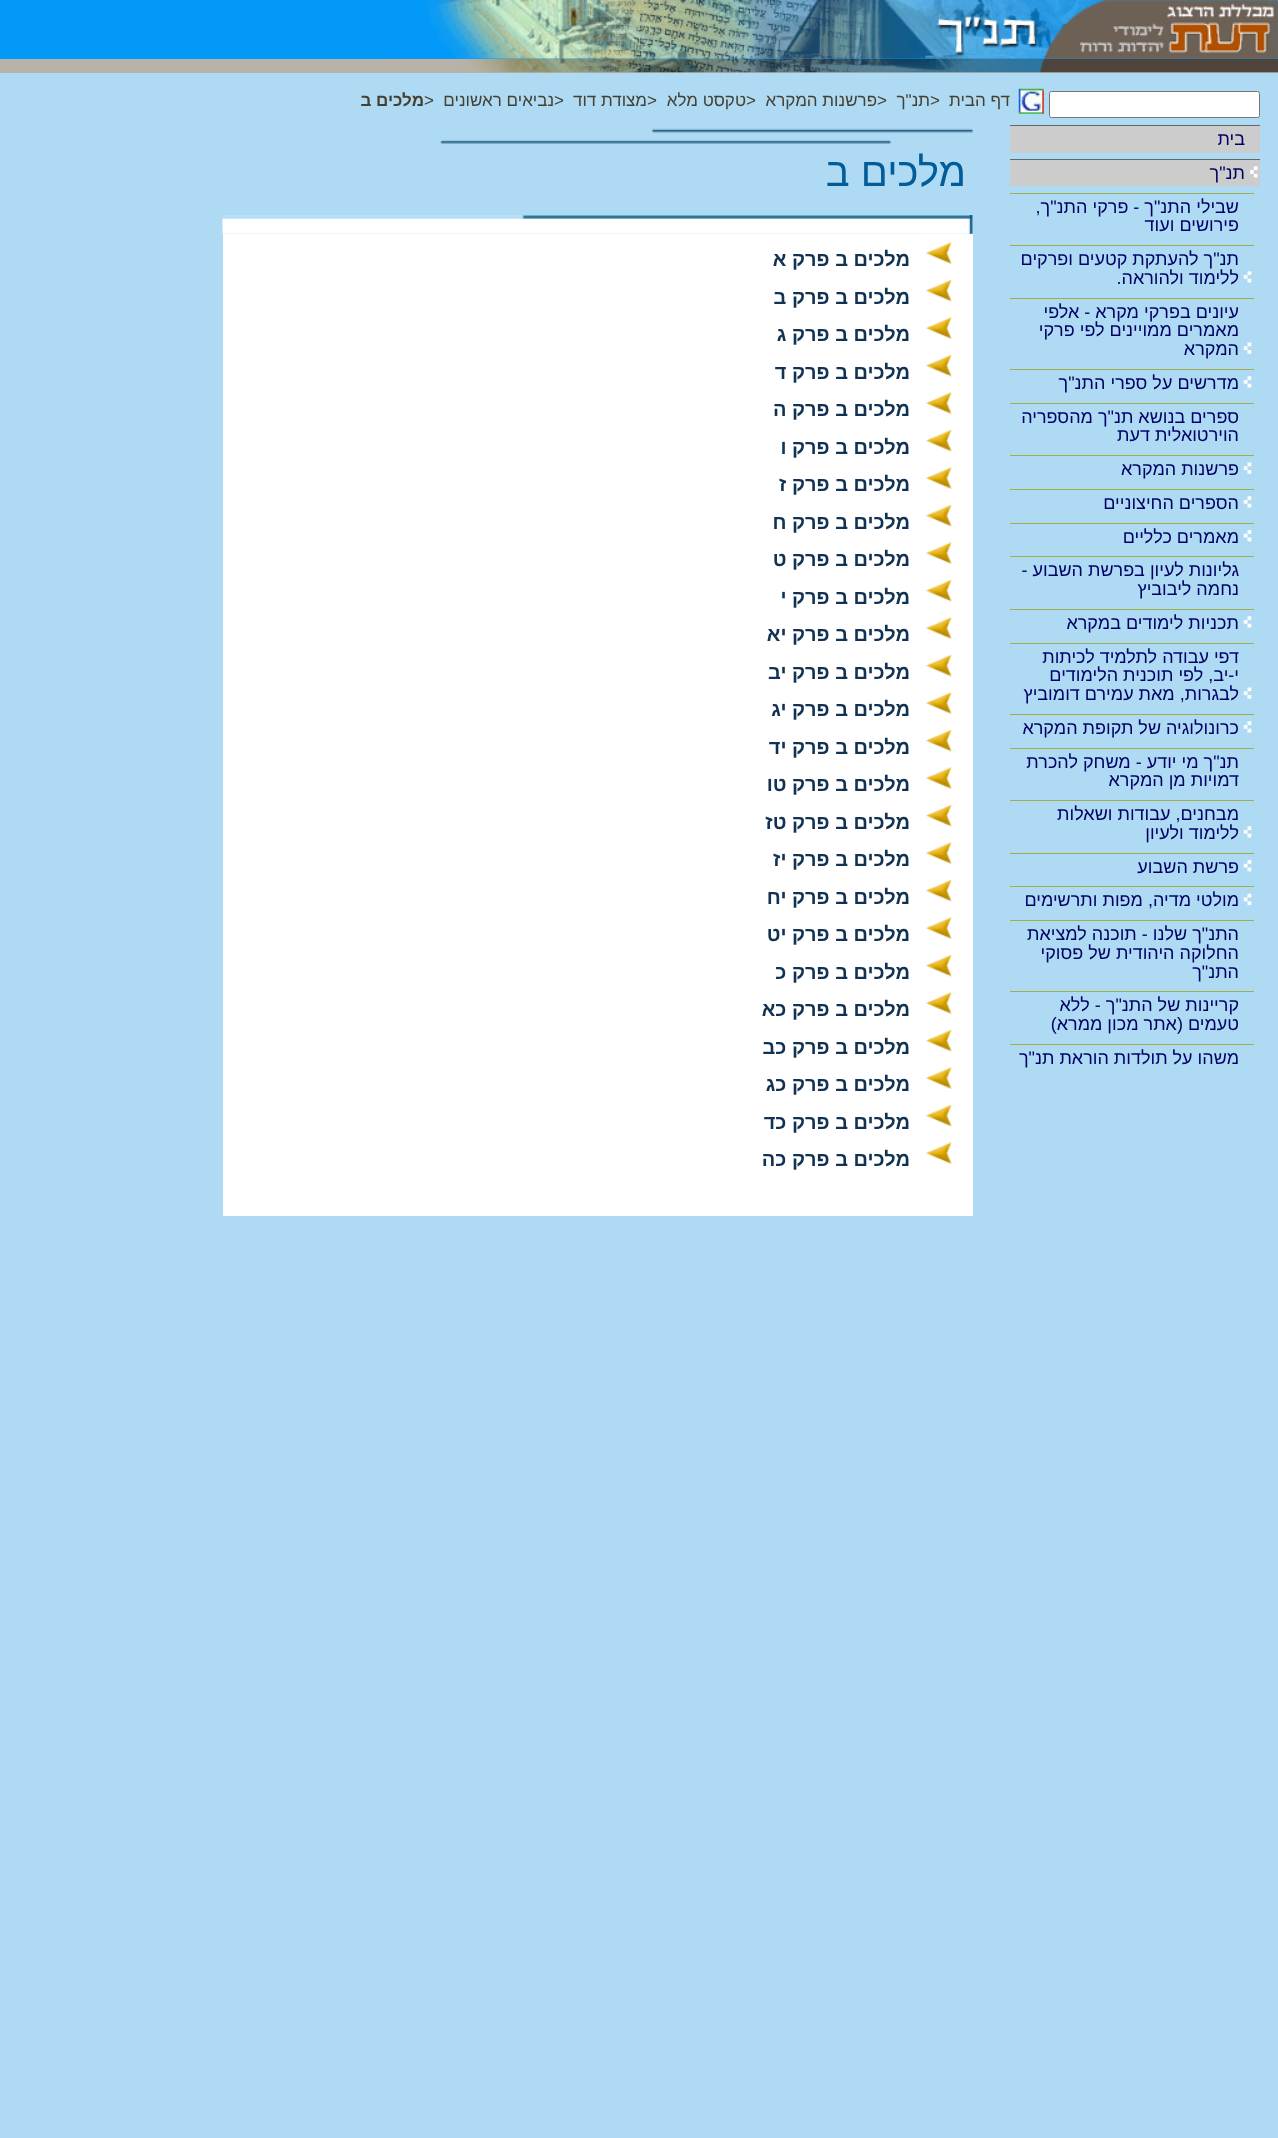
<!DOCTYPE html>
<meta charset="utf-8">
<style>body { margin: 0 } canvas { display: block }</style>
<canvas id="canvas" width="1278" height="2138"></canvas>
<img id="img1" src="images/1.png" hidden>
<img id="img2" src="images/2.png" hidden>
<img id="img3" src="images/3.png" hidden>
<img id="img4" src="images/4.png" hidden>
<img id="img5" src="images/5.png" hidden>
<img id="img6" src="images/6.png" hidden>
<img id="img7" src="images/7.png" hidden>
<img id="img8" src="images/8.png" hidden>
<img id="img9" src="images/9.png" hidden>
<img id="img10" src="images/10.png" hidden>
<img id="img11" src="images/11.png" hidden>
<img id="img12" src="images/12.png" hidden>
<img id="img13" src="images/13.png" hidden>
<img id="img14" src="images/14.png" hidden>
<img id="img15" src="images/15.png" hidden>
<script>
window.onload = function () {
    const canvas = document.getElementById('canvas');
    const context = canvas.getContext('2d');
    context.miterLimit = 4;
    context.fontKerning = 'normal';

    context.fillStyle = 'rgb(174, 218, 244)';
    context.fillRect(0, 0, 1278, 2138);
    context.fillStyle = 'rgb(3, 153, 248)';
    context.fillRect(0, 0, 1278, 59);
    context.drawImage(document.getElementById('img1'), 1042, 0, 236, 59);
    context.drawImage(document.getElementById('img2'), 425, 0, 618, 59);
    context.fillStyle = 'rgb(185, 178, 168)';
    context.fillRect(0, 59, 1278, 14);
    context.drawImage(document.getElementById('img3'), 389, 58, 889, 15);
    context.fillStyle = 'rgb(255, 255, 255)';
    context.beginPath();
    context.roundRect(1049.5, 91.5, 210, 26, 2);
    context.fill();
    context.strokeStyle = 'rgb(118, 118, 118)';
    context.stroke();
    context.drawImage(document.getElementById('img4'), 1018, 88, 26, 26);
    context.fillStyle = 'rgb(204, 204, 204)';
    context.fillRect(1010, 126, 250, 27);
    context.fillStyle = 'rgb(102, 102, 102)';
    context.fillRect(1010, 125, 250, 1);
    context.fillStyle = 'rgb(204, 204, 204)';
    context.fillRect(1010, 160, 250, 26);
    context.fillStyle = 'rgb(102, 102, 102)';
    context.fillRect(1010, 159, 250, 1);
    context.drawImage(document.getElementById('img5'), 1250, 166, 8, 12);
    context.fillStyle = 'rgb(160, 175, 75)';
    context.fillRect(1010, 193, 244, 1);
    context.fillRect(1010, 245, 244, 1);
    context.drawImage(document.getElementById('img6'), 1243, 271, 9, 12);
    context.fillRect(1010, 298, 244, 1);
    context.drawImage(document.getElementById('img7'), 1243, 342, 9, 12);
    context.fillRect(1010, 369, 244, 1);
    context.drawImage(document.getElementById('img6'), 1243, 376, 9, 12);
    context.fillRect(1010, 403, 244, 1);
    context.fillRect(1010, 455, 244, 1);
    context.drawImage(document.getElementById('img7'), 1243, 462, 9, 12);
    context.fillRect(1010, 489, 244, 1);
    context.drawImage(document.getElementById('img6'), 1243, 496, 9, 12);
    context.fillRect(1010, 523, 244, 1);
    context.drawImage(document.getElementById('img8'), 1243, 529, 9, 13);
    context.fillRect(1010, 556, 244, 1);
    context.fillRect(1010, 609, 244, 1);
    context.drawImage(document.getElementById('img6'), 1243, 616, 9, 12);
    context.fillRect(1010, 643, 244, 1);
    context.drawImage(document.getElementById('img7'), 1243, 687, 9, 12);
    context.fillRect(1010, 714, 244, 1);
    context.drawImage(document.getElementById('img6'), 1243, 721, 9, 12);
    context.fillRect(1010, 748, 244, 1);
    context.fillRect(1010, 800, 244, 1);
    context.drawImage(document.getElementById('img6'), 1243, 826, 9, 12);
    context.fillRect(1010, 853, 244, 1);
    context.drawImage(document.getElementById('img8'), 1243, 859, 9, 13);
    context.fillRect(1010, 886, 244, 1);
    context.drawImage(document.getElementById('img9'), 1243, 893, 9, 13);
    context.fillRect(1010, 920, 244, 1);
    context.fillRect(1010, 991, 244, 1);
    context.fillRect(1010, 1044, 244, 1);
    context.drawImage(document.getElementById('img10'), 440, 128, 533, 16);
    context.drawImage(document.getElementById('img11'), 222, 215, 751, 19);
    context.fillStyle = 'rgb(255, 255, 255)';
    context.fillRect(223, 234, 750, 982);
    context.drawImage(document.getElementById('img12'), 919, 233, 41, 31);
    context.drawImage(document.getElementById('img13'), 926, 279, 26, 23);
    context.drawImage(document.getElementById('img14'), 926, 317, 26, 22);
    context.drawImage(document.getElementById('img13'), 926, 354, 26, 23);
    context.drawImage(document.getElementById('img14'), 926, 392, 26, 22);
    context.drawImage(document.getElementById('img13'), 926, 429, 26, 23);
    context.drawImage(document.getElementById('img14'), 926, 467, 26, 22);
    context.drawImage(document.getElementById('img13'), 926, 504, 26, 23);
    context.drawImage(document.getElementById('img14'), 926, 542, 26, 22);
    context.drawImage(document.getElementById('img15'), 926, 579, 26, 23);
    context.drawImage(document.getElementById('img14'), 926, 617, 26, 22);
    context.drawImage(document.getElementById('img13'), 926, 654, 26, 23);
    context.drawImage(document.getElementById('img14'), 926, 692, 26, 22);
    context.drawImage(document.getElementById('img13'), 926, 729, 26, 23);
    context.drawImage(document.getElementById('img14'), 926, 767, 26, 22);
    context.drawImage(document.getElementById('img13'), 926, 804, 26, 23);
    context.drawImage(document.getElementById('img14'), 926, 842, 26, 22);
    context.drawImage(document.getElementById('img13'), 926, 879, 26, 23);
    context.drawImage(document.getElementById('img14'), 926, 917, 26, 22);
    context.drawImage(document.getElementById('img13'), 926, 954, 26, 23);
    context.drawImage(document.getElementById('img14'), 926, 992, 26, 22);
    context.drawImage(document.getElementById('img13'), 926, 1029, 26, 23);
    context.drawImage(document.getElementById('img14'), 926, 1067, 26, 22);
    context.drawImage(document.getElementById('img13'), 926, 1104, 26, 23);
    context.drawImage(document.getElementById('img14'), 926, 1142, 26, 22);
    context.direction = 'rtl';
    context.font = '17px Liberation Sans';
    context.fillStyle = 'rgb(68, 64, 50)';
    context.fillText('דף הבית', 1010, 106);
    context.direction = 'ltr';
    context.fillText('>', 930, 106);
    context.direction = 'rtl';
    context.fillText('תנ"ך', 930, 106);
    context.direction = 'ltr';
    context.fillText('>', 877, 106);
    context.direction = 'rtl';
    context.fillText('פרשנות המקרא', 877, 106);
    context.direction = 'ltr';
    context.fillText('>', 746, 106);
    context.direction = 'rtl';
    context.fillText('טקסט מלא', 746, 106);
    context.direction = 'ltr';
    context.fillText('>', 647, 106);
    context.direction = 'rtl';
    context.fillText('מצודת דוד', 647, 106);
    context.direction = 'ltr';
    context.fillText('>', 554, 106);
    context.direction = 'rtl';
    context.fillText('נביאים ראשונים', 554, 106);
    context.direction = 'ltr';
    context.fillText('>', 424, 106);
    context.direction = 'rtl';
    context.font = 'bold 17px Liberation Sans';
    context.fillText('מלכים ב', 424, 106);
    context.font = '18px Liberation Sans';
    context.fillStyle = 'rgb(0, 0, 102)';
    context.fillText('בית', 1245, 145);
    context.fillText('תנ"ך', 1245, 179);
    context.fillText('שבילי התנ"ך - פרקי התנ"ך,', 1239, 213);
    context.fillText('פירושים ועוד', 1239, 231);
    context.fillText('תנ"ך להעתקת קטעים ופרקים', 1239, 265);
    context.fillText('ללימוד ולהוראה.', 1239, 284);
    context.fillText('עיונים בפרקי מקרא - אלפי', 1239, 318);
    context.fillText('מאמרים ממויינים לפי פרקי', 1239, 336);
    context.fillText('המקרא', 1239, 355);
    context.fillText('מדרשים על ספרי התנ"ך', 1239, 389);
    context.fillText('ספרים בנושא תנ"ך מהספריה', 1239, 423);
    context.fillText('הוירטואלית דעת', 1239, 441);
    context.fillText('פרשנות המקרא', 1239, 475);
    context.fillText('הספרים החיצוניים', 1239, 509);
    context.fillText('מאמרים כלליים', 1239, 543);
    context.fillText('גליונות לעיון בפרשת השבוע -', 1239, 576);
    context.fillText('נחמה ליבוביץ', 1239, 595);
    context.fillText('תכניות לימודים במקרא', 1239, 629);
    context.fillText('דפי עבודה לתלמיד לכיתות', 1239, 663);
    context.fillText('י-יב, לפי תוכנית הלימודים', 1239, 681);
    context.fillText('לבגרות, מאת עמירם דומוביץ', 1239, 700);
    context.fillText('כרונולוגיה של תקופת המקרא', 1239, 734);
    context.fillText('תנ"ך מי יודע - משחק להכרת', 1239, 768);
    context.fillText('דמויות מן המקרא', 1239, 786);
    context.fillText('מבחנים, עבודות ושאלות', 1239, 820);
    context.fillText('ללימוד ולעיון', 1239, 839);
    context.fillText('פרשת השבוע', 1239, 873);
    context.fillText('מולטי מדיה, מפות ותרשימים', 1239, 906);
    context.fillText('התנ"ך שלנו - תוכנה למציאת', 1239, 940);
    context.fillText('החלוקה היהודית של פסוקי', 1239, 959);
    context.fillText('התנ"ך', 1239, 978);
    context.fillText('קריינות של התנ"ך - ללא', 1239, 1011);
    context.fillText('טעמים (אתר מכון ממרא)', 1239, 1030);
    context.fillText('משהו על תולדות הוראת תנ"ך', 1239, 1064);
    context.font = '40px Liberation Sans';
    context.fillStyle = 'rgb(2, 92, 153)';
    context.fillText('מלכים ב', 966, 186);
    context.font = 'bold 20px Liberation Sans';
    context.fillStyle = 'rgb(17, 50, 83)';
    context.fillText('מלכים ב פרק א', 910, 266);
    context.fillText('מלכים ב פרק ב', 910, 304);
    context.fillText('מלכים ב פרק ג', 910, 341);
    context.fillText('מלכים ב פרק ד', 910, 379);
    context.fillText('מלכים ב פרק ה', 910, 416);
    context.fillText('מלכים ב פרק ו', 910, 454);
    context.fillText('מלכים ב פרק ז', 910, 491);
    context.fillText('מלכים ב פרק ח', 910, 529);
    context.fillText('מלכים ב פרק ט', 910, 566);
    context.fillText('מלכים ב פרק י', 910, 604);
    context.fillText('מלכים ב פרק יא', 910, 641);
    context.fillText('מלכים ב פרק יב', 910, 679);
    context.fillText('מלכים ב פרק יג', 910, 716);
    context.fillText('מלכים ב פרק יד', 910, 754);
    context.fillText('מלכים ב פרק טו', 910, 791);
    context.fillText('מלכים ב פרק טז', 910, 829);
    context.fillText('מלכים ב פרק יז', 910, 866);
    context.fillText('מלכים ב פרק יח', 910, 904);
    context.fillText('מלכים ב פרק יט', 910, 941);
    context.fillText('מלכים ב פרק כ', 910, 979);
    context.fillText('מלכים ב פרק כא', 910, 1016);
    context.fillText('מלכים ב פרק כב', 910, 1054);
    context.fillText('מלכים ב פרק כג', 910, 1091);
    context.fillText('מלכים ב פרק כד', 910, 1129);
    context.fillText('מלכים ב פרק כה', 910, 1166);
};
</script>
